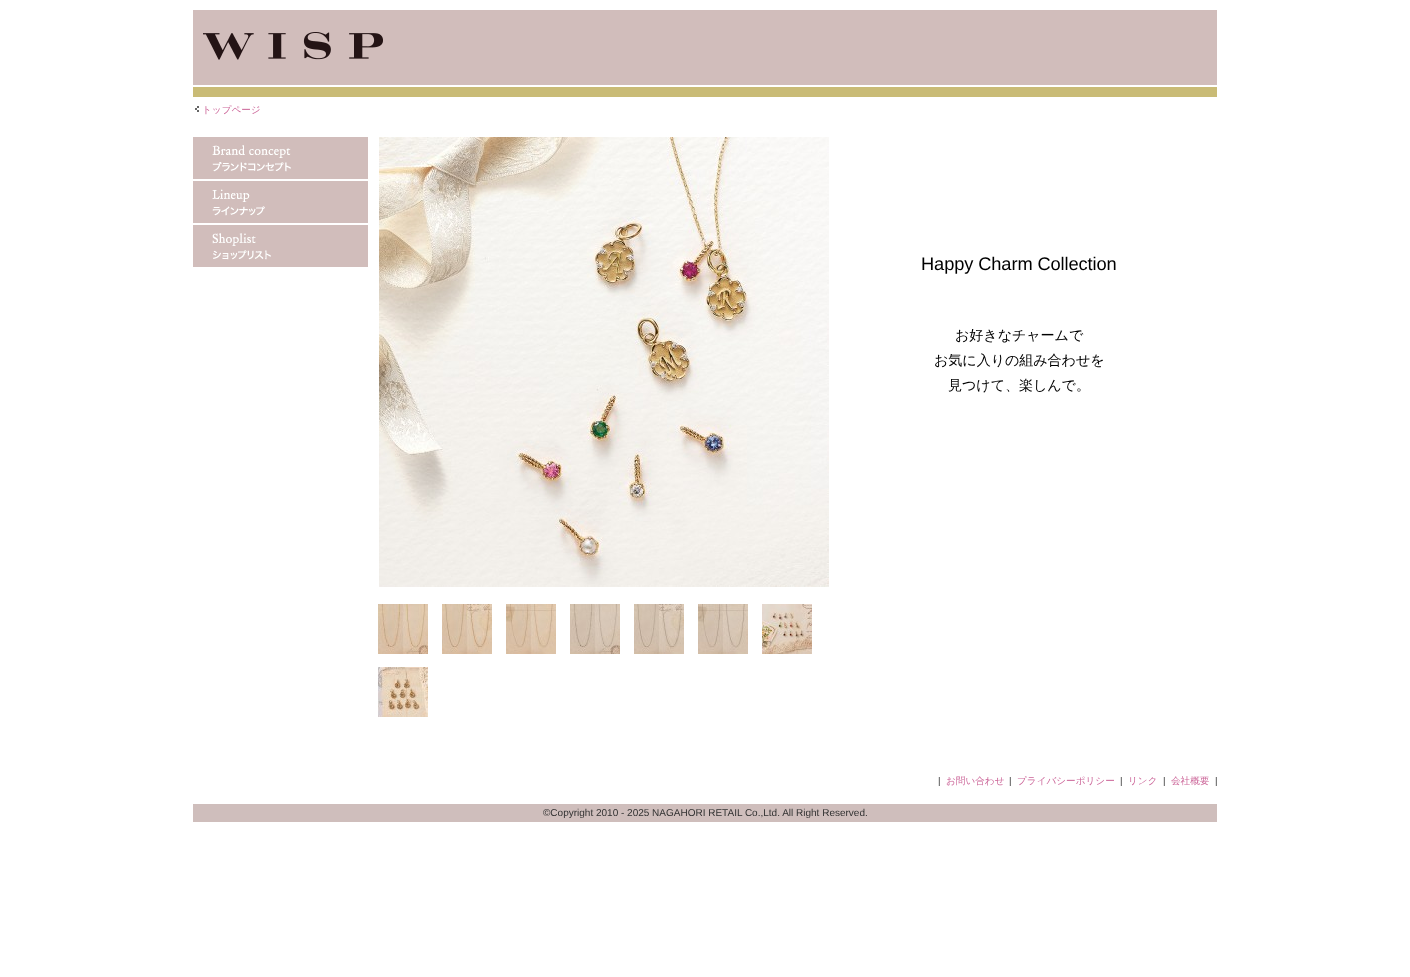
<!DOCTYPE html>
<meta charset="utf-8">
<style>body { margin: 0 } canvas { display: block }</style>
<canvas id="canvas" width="1410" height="977"></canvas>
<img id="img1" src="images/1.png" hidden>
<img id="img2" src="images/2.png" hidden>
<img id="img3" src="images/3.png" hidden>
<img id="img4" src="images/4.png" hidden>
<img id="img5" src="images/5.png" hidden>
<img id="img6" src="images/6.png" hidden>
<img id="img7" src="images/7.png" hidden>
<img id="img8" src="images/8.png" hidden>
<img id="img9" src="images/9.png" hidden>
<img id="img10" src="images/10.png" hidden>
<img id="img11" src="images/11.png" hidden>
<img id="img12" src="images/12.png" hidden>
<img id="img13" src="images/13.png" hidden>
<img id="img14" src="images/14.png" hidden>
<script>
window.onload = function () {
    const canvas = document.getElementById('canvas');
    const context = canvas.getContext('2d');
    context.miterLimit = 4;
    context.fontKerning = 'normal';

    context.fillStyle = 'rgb(255, 255, 255)';
    context.fillRect(0, 0, 1410, 977);
    context.fillStyle = 'rgb(209, 189, 187)';
    context.fillRect(193, 10, 1024, 75);
    context.drawImage(document.getElementById('img1'), 203, 32, 180, 28);
    context.fillStyle = 'rgb(201, 187, 118)';
    context.fillRect(193, 87, 1024, 10);
    context.drawImage(document.getElementById('img2'), 195, 106, 4, 6);
    context.drawImage(document.getElementById('img3'), 193, 137, 175, 42);
    context.drawImage(document.getElementById('img4'), 193, 181, 175, 42);
    context.drawImage(document.getElementById('img5'), 193, 225, 175, 42);
    context.drawImage(document.getElementById('img6'), 379, 137, 450, 450);
    context.drawImage(document.getElementById('img7'), 378, 604, 50, 50);
    context.drawImage(document.getElementById('img8'), 442, 604, 50, 50);
    context.drawImage(document.getElementById('img9'), 506, 604, 50, 50);
    context.drawImage(document.getElementById('img10'), 570, 604, 50, 50);
    context.drawImage(document.getElementById('img11'), 634, 604, 50, 50);
    context.drawImage(document.getElementById('img12'), 698, 604, 50, 50);
    context.drawImage(document.getElementById('img13'), 762, 604, 50, 50);
    context.drawImage(document.getElementById('img14'), 378, 667, 50, 50);
    context.fillStyle = 'rgb(207, 190, 188)';
    context.fillRect(193, 804, 1024, 18);
    context.font = '500 9.6px WenQuanYi Zen Hei';
    context.fillStyle = 'rgb(204, 102, 153)';
    context.fillText('トップページ', 202, 113);
    context.letterSpacing = '-0.1px';
    context.font = '18.25px Liberation Sans';
    context.fillStyle = 'rgb(0, 0, 0)';
    context.fillText('Happy Charm Collection', 921, 270);
    context.font = '500 14.1px WenQuanYi Zen Hei';
    context.fillText('お好きなチャームで', 955, 340);
    context.fillText('お気に入りの組み合わせを', 934, 365);
    context.fillText('見つけて、楽しんで。', 948, 390);
    context.letterSpacing = '0px';
    context.font = '9.6px Liberation Sans';
    context.fillStyle = 'rgb(50, 50, 50)';
    context.fillText('|', 938, 784);
    context.font = '500 9.6px WenQuanYi Zen Hei';
    context.fillStyle = 'rgb(204, 102, 153)';
    context.fillText('お問い合わせ', 946, 784);
    context.font = '9.6px Liberation Sans';
    context.fillStyle = 'rgb(50, 50, 50)';
    context.fillText('|', 1009, 784);
    context.font = '500 9.6px WenQuanYi Zen Hei';
    context.fillStyle = 'rgb(204, 102, 153)';
    context.fillText('プライバシーポリシー', 1017, 784);
    context.font = '9.6px Liberation Sans';
    context.fillStyle = 'rgb(50, 50, 50)';
    context.fillText('|', 1120, 784);
    context.font = '500 9.6px WenQuanYi Zen Hei';
    context.fillStyle = 'rgb(204, 102, 153)';
    context.fillText('リンク', 1128, 784);
    context.font = '9.6px Liberation Sans';
    context.fillStyle = 'rgb(50, 50, 50)';
    context.fillText('|', 1163, 784);
    context.font = '500 9.6px WenQuanYi Zen Hei';
    context.fillStyle = 'rgb(204, 102, 153)';
    context.fillText('会社概要', 1171, 784);
    context.font = '9.6px Liberation Sans';
    context.fillStyle = 'rgb(50, 50, 50)';
    context.fillText('|', 1215, 784);
    context.font = '10px Liberation Sans';
    context.fillText('©Copyright 2010 - 2025 NAGAHORI RETAIL Co.,Ltd. All Right Reserved.', 543, 816);
};
</script>
